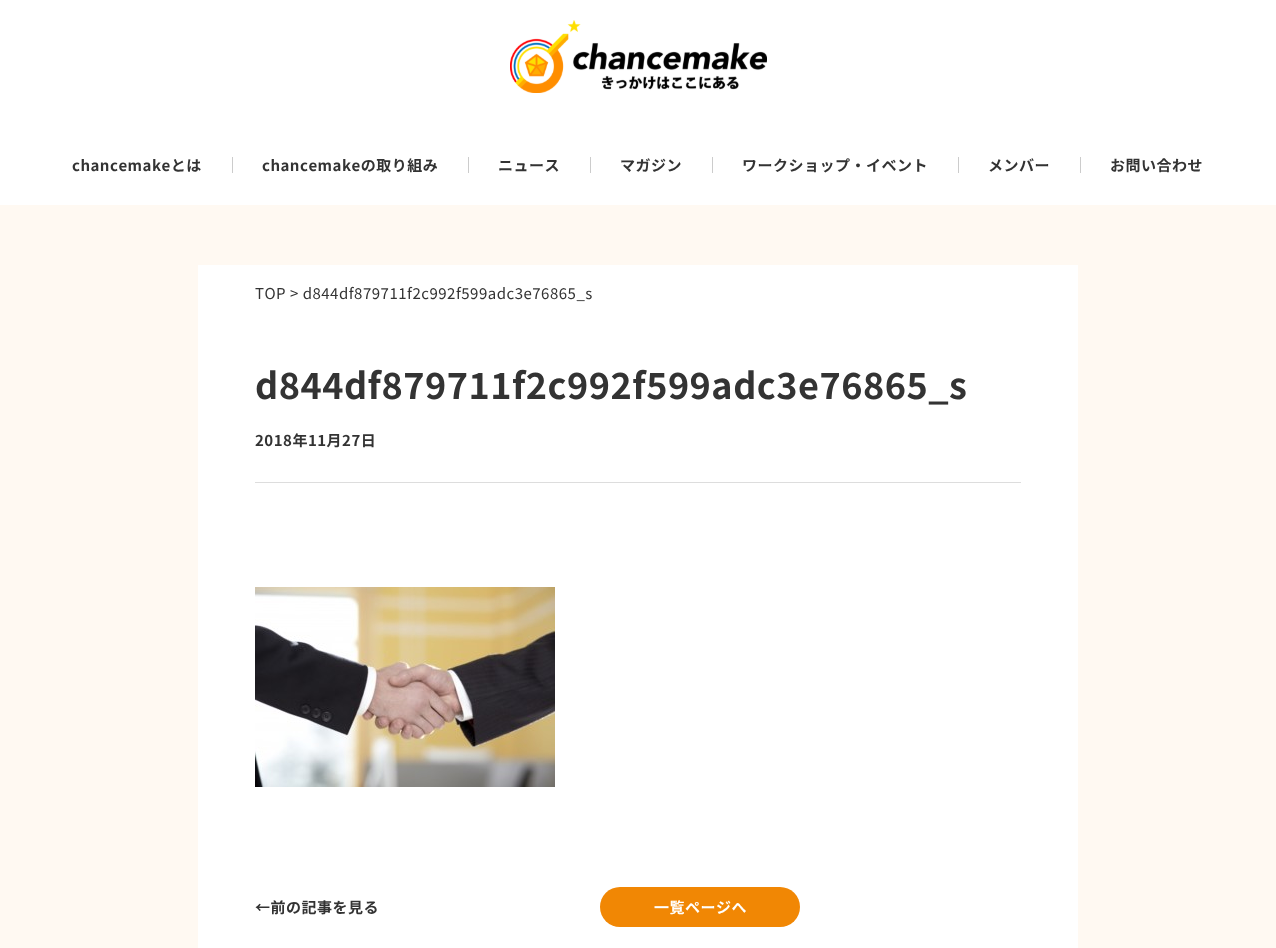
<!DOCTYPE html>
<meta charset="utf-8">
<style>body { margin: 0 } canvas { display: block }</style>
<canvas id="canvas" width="1276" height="948"></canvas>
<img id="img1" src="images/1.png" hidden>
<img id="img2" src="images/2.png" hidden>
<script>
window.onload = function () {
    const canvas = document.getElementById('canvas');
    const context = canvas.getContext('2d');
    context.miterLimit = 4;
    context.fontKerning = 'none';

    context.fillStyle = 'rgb(255, 255, 255)';
    context.fillRect(0, 0, 1276, 948);
    context.drawImage(document.getElementById('img1'), 510, 20, 257, 73);
    context.fillStyle = 'rgb(204, 204, 204)';
    context.fillRect(232, 157, 1, 16);
    context.fillRect(468, 157, 1, 16);
    context.fillRect(590, 157, 1, 16);
    context.fillRect(712, 157, 1, 16);
    context.fillRect(958, 157, 1, 16);
    context.fillRect(1080, 157, 1, 16);
    context.fillStyle = 'rgb(255, 249, 242)';
    context.fillRect(0, 205, 1276, 743);
    context.fillStyle = 'rgb(255, 255, 255)';
    context.fillRect(198, 265, 880, 683);
    context.fillStyle = 'rgb(221, 221, 221)';
    context.fillRect(255, 482, 766, 1);
    context.drawImage(document.getElementById('img2'), 255, 587, 300, 200);
    context.fillStyle = 'rgb(241, 135, 4)';
    context.beginPath();
    context.roundRect(600, 887, 200, 40, 20);
    context.fill();
    context.letterSpacing = '0.5px';
    context.font = 'bold 15px Noto Sans JP';
    context.fillStyle = 'rgb(51, 51, 51)';
    context.fillText('chancemakeとは', 72, 171);
    context.fillText('chancemakeの取り組み', 262, 171);
    context.fillText('ニュース', 498, 171);
    context.fillText('マガジン', 620, 171);
    context.fillText('ワークショップ・イベント', 742, 171);
    context.fillText('メンバー', 988, 171);
    context.fillText('お問い合わせ', 1110, 171);
    context.font = '15px Noto Sans JP';
    context.fillText('TOP > d844df879711f2c992f599adc3e76865_s', 255, 299);
    context.font = 'bold 36px Noto Sans JP';
    context.fillText('d844df879711f2c992f599adc3e76865_s', 255, 399);
    context.font = 'bold 15px Noto Sans JP';
    context.fillText('2018年11月27日', 255, 446);
    context.fillText('←前の記事を見る', 255, 913);
    context.fillStyle = 'rgb(255, 255, 255)';
    context.fillText('一覧ページへ', 654, 913);
};
</script>
